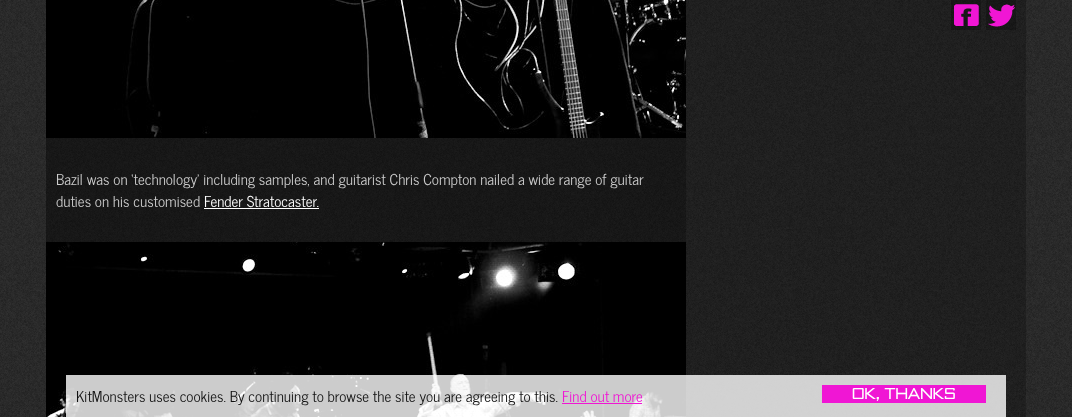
<!DOCTYPE html>
<meta charset="utf-8">
<style>body { margin: 0 } canvas { display: block }</style>
<canvas id="canvas" width="1072" height="417"></canvas>
<img id="img1" src="images/1.png" hidden>
<img id="img2" src="images/2.png" hidden>
<img id="img3" src="images/3.png" hidden>
<img id="img4" src="images/4.png" hidden>
<img id="img5" src="images/5.png" hidden>
<script>
window.onload = function () {
    const canvas = document.getElementById('canvas');
    const context = canvas.getContext('2d');
    context.miterLimit = 4;
    context.fontKerning = 'normal';

    context.fillStyle = 'rgb(255, 255, 255)';
    context.fillRect(0, 0, 1072, 417);
    context.drawImage(document.getElementById('img1'), 0, 0, 1072, 417);
    context.fillStyle = 'rgba(0, 0, 0, 0.24)';
    context.fillRect(951, 0, 30, 30);
    context.drawImage(document.getElementById('img2'), 954, 4, 25, 22);
    context.fillRect(986, 0, 30, 30);
    context.drawImage(document.getElementById('img3'), 988, 4, 27, 23);
    context.fillRect(46, 138, 640, 104);
    context.drawImage(document.getElementById('img4'), 46, 0, 640, 138);
    context.fillStyle = 'rgb(255, 255, 255)';
    context.fillRect(204, 208, 115, 1);
    context.drawImage(document.getElementById('img5'), 46, 242, 640, 175);
    context.fillStyle = 'rgba(255, 255, 255, 0.8)';
    context.fillRect(66, 375, 940, 42);
    context.fillStyle = 'rgb(240, 22, 212)';
    context.fillRect(562, 403, 80, 1);
    context.fillRect(822, 385, 164, 18);
    context.font = '15px News Cycle';
    context.fillStyle = 'rgb(204, 204, 204)';
    context.fillText('Bazil was on ‘technology’ including samples, and guitarist Chris Compton nailed a wide range of guitar', 56, 185);
    context.fillText('duties on his customised', 56, 207);
    context.fillStyle = 'rgb(255, 255, 255)';
    context.fillText('Fender Stratocaster.', 204, 207);
    context.fillStyle = 'rgb(17, 17, 17)';
    context.fillText('KitMonsters uses cookies. By continuing to browse the site you are agreeing to this.', 76, 402);
    context.fillStyle = 'rgb(240, 22, 212)';
    context.fillText('Find out more', 562, 402);
    context.font = '300 14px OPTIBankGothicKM';
    context.fillStyle = 'rgb(255, 255, 255)';
    context.fillText('OK, Thanks', 852, 399);
};
</script>
